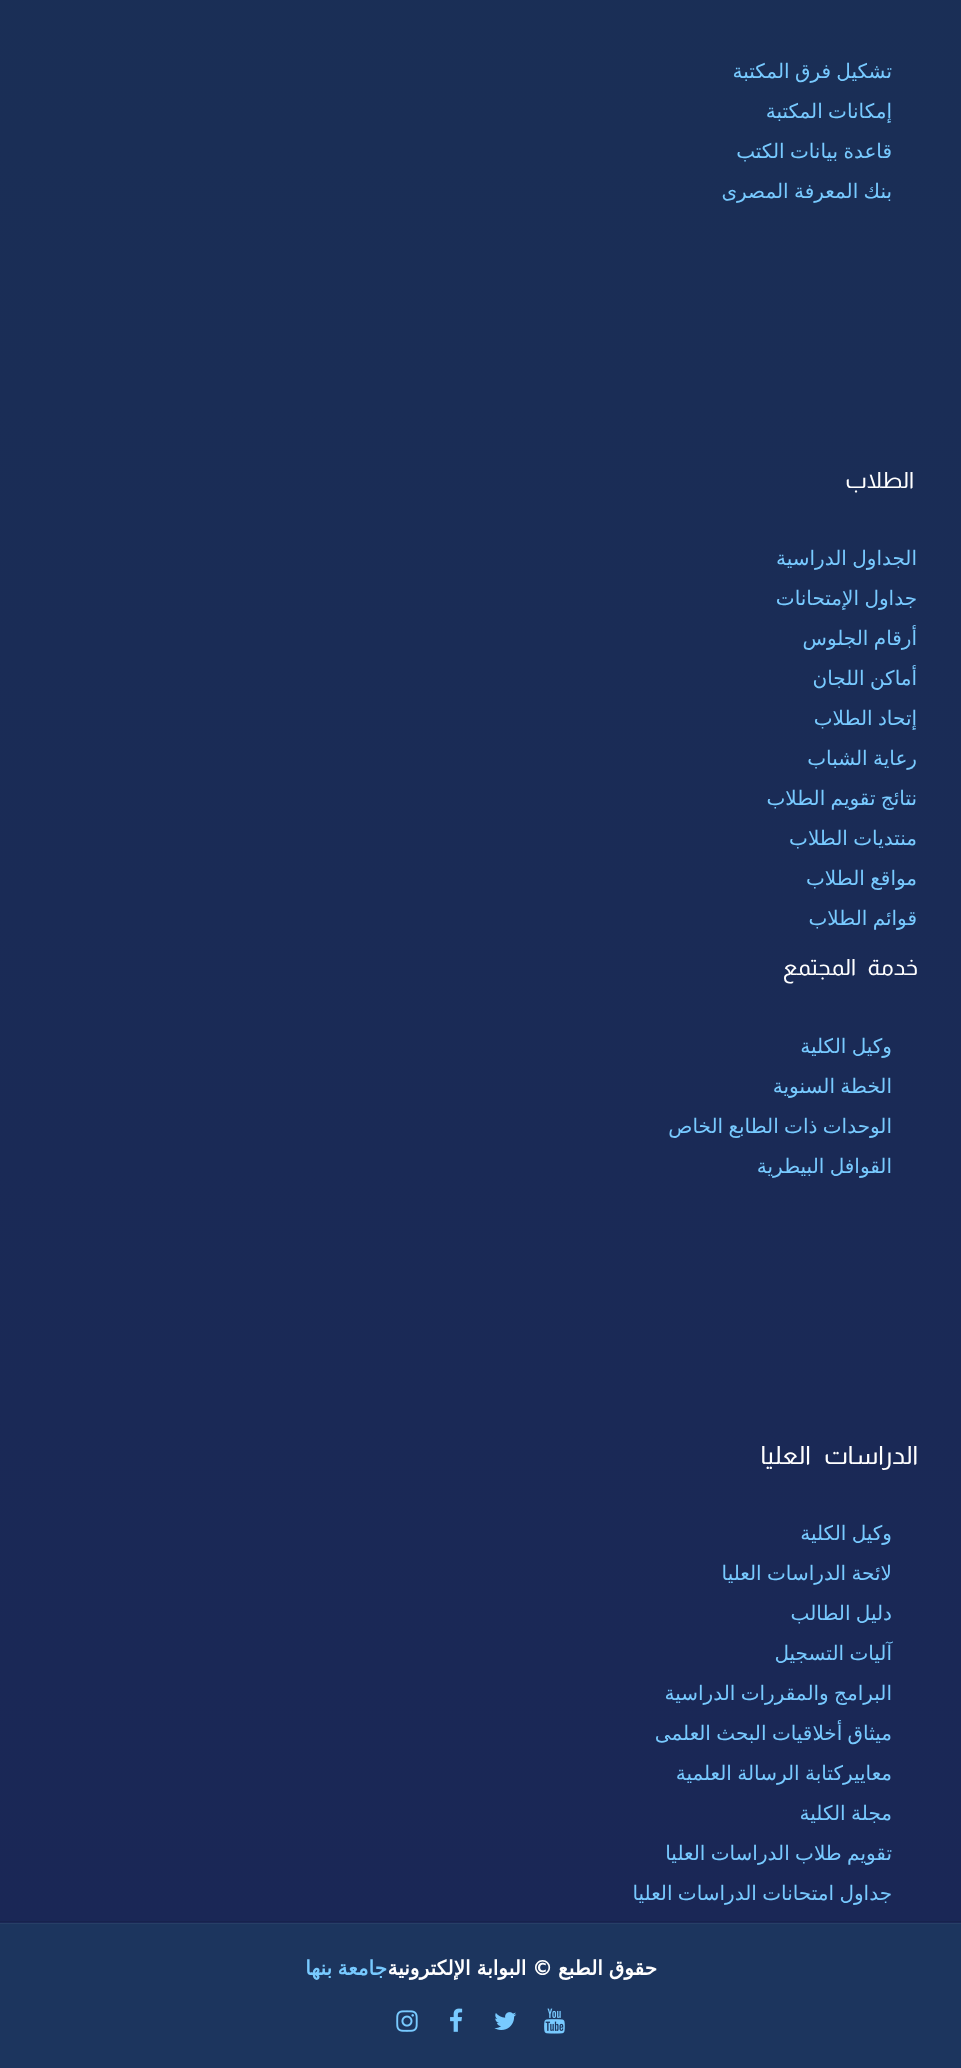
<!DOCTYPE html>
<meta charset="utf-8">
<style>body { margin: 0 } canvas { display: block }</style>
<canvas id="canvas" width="961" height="2068"></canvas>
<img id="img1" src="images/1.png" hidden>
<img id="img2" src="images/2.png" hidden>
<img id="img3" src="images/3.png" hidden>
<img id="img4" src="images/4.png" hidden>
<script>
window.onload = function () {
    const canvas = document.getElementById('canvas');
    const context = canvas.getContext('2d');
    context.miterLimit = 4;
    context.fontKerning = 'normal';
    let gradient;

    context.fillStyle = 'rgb(255, 255, 255)';
    context.fillRect(0, 0, 961, 2068);
    gradient = context.createLinearGradient(481, 1923, 481, -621);
    gradient.addColorStop(0, 'rgb(26, 39, 86)');
    gradient.addColorStop(1, 'rgb(26, 49, 86)');
    context.fillStyle = gradient;
    context.fillRect(0, 0, 961, 1923);
    context.fillStyle = 'rgb(23, 35, 77)';
    context.fillRect(0, 1921, 961, 1);
    context.fillStyle = 'rgb(28, 53, 94)';
    context.fillRect(0, 1924, 961, 144);
    context.fillStyle = 'rgb(39, 63, 102)';
    context.fillRect(0, 1923, 961, 1);
    context.drawImage(document.getElementById('img1'), 544, 2008, 21, 26);
    context.drawImage(document.getElementById('img2'), 494, 2012, 23, 18);
    context.drawImage(document.getElementById('img3'), 450, 2008, 13, 24);
    context.drawImage(document.getElementById('img4'), 396, 2010, 22, 22);
    context.wordSpacing = '-1px';
    context.direction = 'rtl';
    context.font = '20px DejaVu Sans';
    context.fillStyle = 'rgb(120, 202, 255)';
    context.fillText('تشكيل فرق المكتبة', 892, 78);
    context.fillText('إمكانات المكتبة', 892, 118);
    context.fillText('قاعدة بيانات الكتب', 892, 158);
    context.fillText('بنك المعرفة المصرى', 892, 198);
    context.letterSpacing = '-0.6px';
    context.wordSpacing = '0px';
    context.font = '22.5px Almarai';
    context.fillStyle = 'rgb(255, 255, 255)';
    context.fillText('الطلاب', 914, 488);
    context.letterSpacing = '0px';
    context.wordSpacing = '-1px';
    context.font = '20px DejaVu Sans';
    context.fillStyle = 'rgb(120, 202, 255)';
    context.fillText('الجداول الدراسية', 917, 565);
    context.fillText('جداول الإمتحانات', 917, 605);
    context.fillText('أرقام الجلوس', 917, 645);
    context.fillText('أماكن اللجان', 917, 685);
    context.fillText('إتحاد الطلاب', 917, 725);
    context.fillText('رعاية الشباب', 917, 765);
    context.fillText('نتائج تقويم الطلاب', 917, 805);
    context.fillText('منتديات الطلاب', 917, 845);
    context.fillText('مواقع الطلاب', 917, 885);
    context.fillText('قوائم الطلاب', 917, 925);
    context.letterSpacing = '-0.6px';
    context.wordSpacing = '8px';
    context.font = '22.5px Almarai';
    context.fillStyle = 'rgb(255, 255, 255)';
    context.fillText('خدمة المجتمع', 918, 975);
    context.letterSpacing = '0px';
    context.wordSpacing = '-1px';
    context.font = '20px DejaVu Sans';
    context.fillStyle = 'rgb(120, 202, 255)';
    context.fillText('وكيل الكلية', 892, 1053);
    context.fillText('الخطة السنوية', 892, 1093);
    context.fillText('الوحدات ذات الطابع الخاص', 892, 1133);
    context.fillText('القوافل البيطرية', 892, 1173);
    context.letterSpacing = '-0.6px';
    context.wordSpacing = '9px';
    context.font = '25px Almarai';
    context.fillStyle = 'rgb(255, 255, 255)';
    context.fillText('الدراسات العليا', 918, 1464);
    context.letterSpacing = '0px';
    context.wordSpacing = '-1px';
    context.font = '20px DejaVu Sans';
    context.fillStyle = 'rgb(120, 202, 255)';
    context.fillText('وكيل الكلية', 892, 1540);
    context.fillText('لائحة الدراسات العليا', 892, 1580);
    context.fillText('دليل الطالب', 892, 1620);
    context.fillText('آليات التسجيل', 892, 1660);
    context.fillText('البرامج والمقررات الدراسية', 892, 1700);
    context.fillText('ميثاق أخلاقيات البحث العلمى', 892, 1740);
    context.fillText('معاييركتابة الرسالة العلمية', 892, 1780);
    context.fillText('مجلة الكلية', 892, 1820);
    context.fillText('تقويم طلاب الدراسات العليا', 892, 1860);
    context.fillText('جداول امتحانات الدراسات العليا', 892, 1900);
    context.wordSpacing = '-0.5px';
    context.font = 'bold 20px DejaVu Sans';
    context.fillStyle = 'rgb(255, 255, 255)';
    context.fillText('حقوق الطبع © البوابة الإلكترونية', 657, 1975);
    context.wordSpacing = '-1px';
    context.fillStyle = 'rgb(120, 202, 255)';
    context.fillText('جامعة بنها', 387, 1975);
};
</script>
